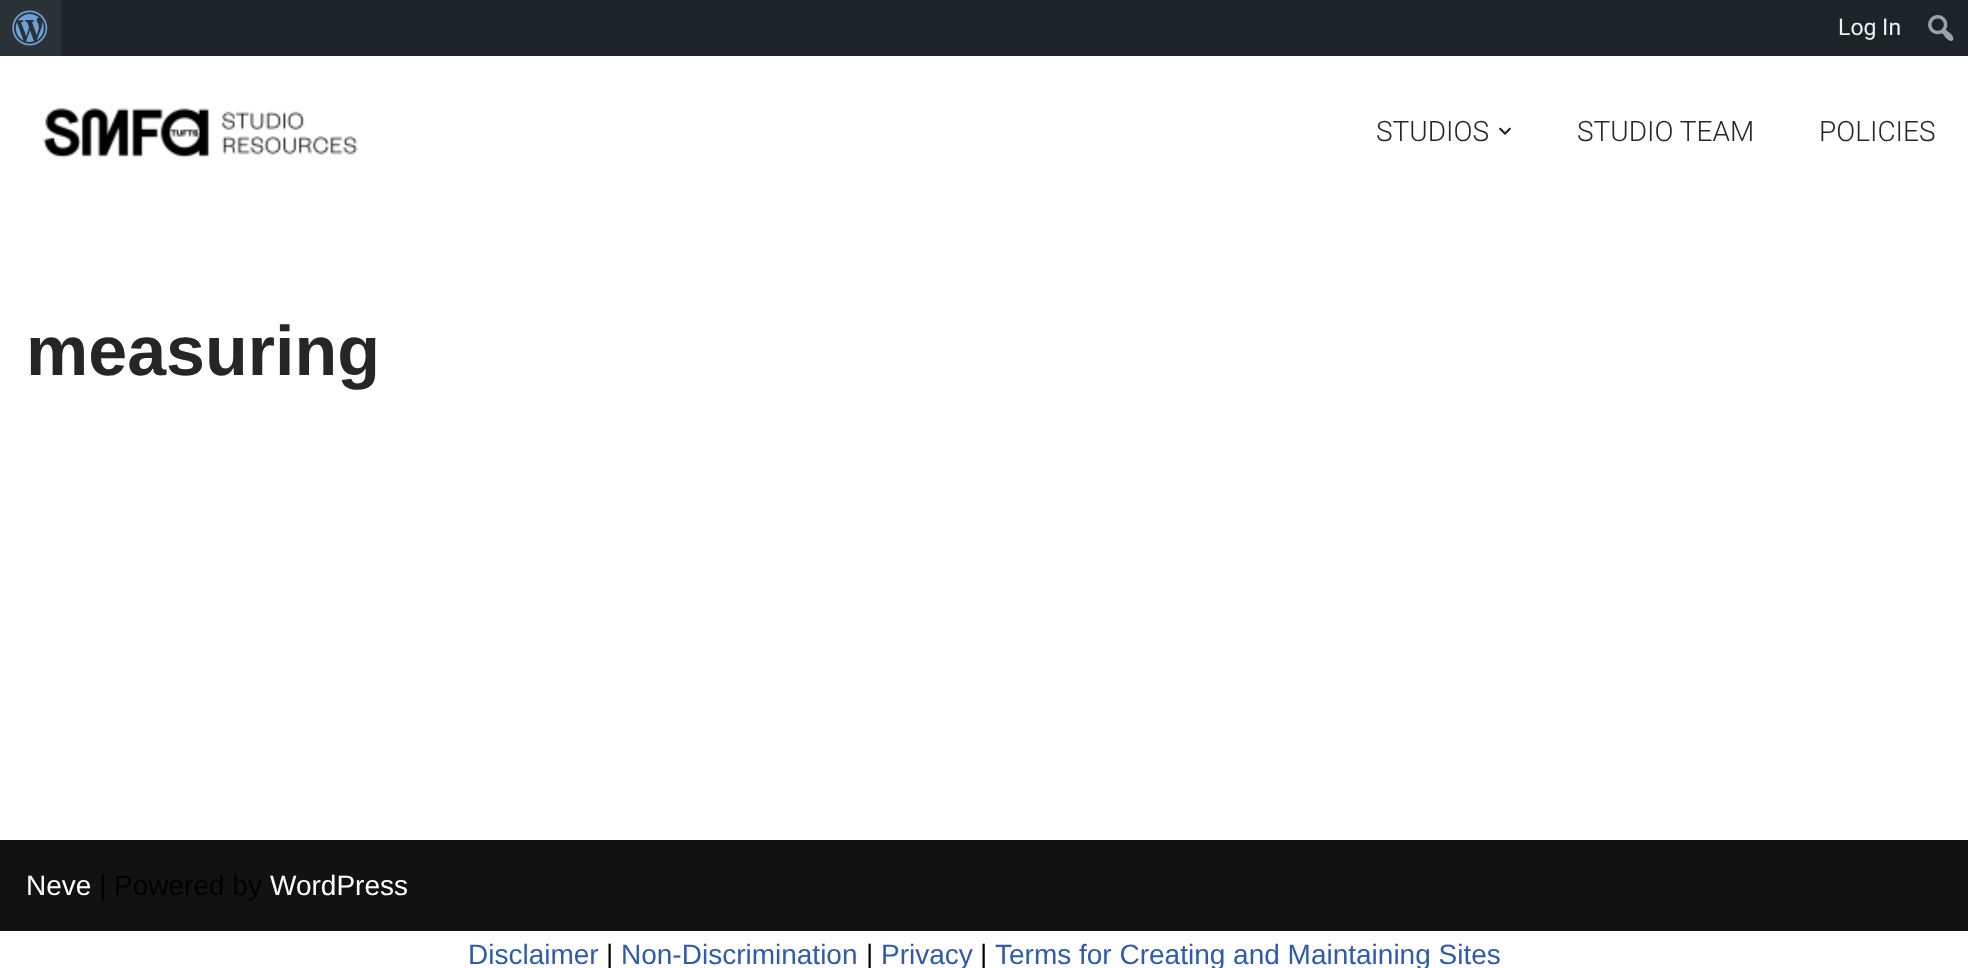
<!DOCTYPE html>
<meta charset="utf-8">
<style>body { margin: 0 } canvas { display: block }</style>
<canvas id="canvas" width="1968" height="968"></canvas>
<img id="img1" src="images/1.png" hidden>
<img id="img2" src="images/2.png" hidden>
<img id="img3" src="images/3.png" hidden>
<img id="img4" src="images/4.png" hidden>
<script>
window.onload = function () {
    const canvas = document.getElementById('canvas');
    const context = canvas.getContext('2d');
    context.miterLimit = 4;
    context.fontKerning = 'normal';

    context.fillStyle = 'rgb(255, 255, 255)';
    context.fillRect(0, 0, 1968, 968);
    context.fillStyle = 'rgb(29, 35, 39)';
    context.fillRect(61, 0, 1907, 56);
    context.fillStyle = 'rgb(43, 49, 54)';
    context.fillRect(0, 0, 61, 56);
    context.drawImage(document.getElementById('img1'), 12, 10, 36, 36);
    context.drawImage(document.getElementById('img2'), 1928, 15, 26, 26);
    context.drawImage(document.getElementById('img3'), 43, 108, 315, 50);
    context.drawImage(document.getElementById('img4'), 1499, 127, 12, 8);
    context.fillStyle = 'rgb(18, 18, 18)';
    context.fillRect(0, 840, 1968, 91);
    context.font = '23px Roboto';
    context.fillStyle = 'rgb(240, 240, 241)';
    context.fillText('Log In', 1838, 35);
    context.font = '300 28px Roboto';
    context.fillStyle = 'rgb(39, 38, 38)';
    context.fillText('STUDIOS', 1376, 141);
    context.fillText('STUDIO TEAM', 1577, 141);
    context.fillText('POLICIES', 1819, 141);
    context.font = 'bold 70px Liberation Sans';
    context.fillText('measuring', 26, 375);
    context.font = '28px Liberation Sans';
    context.fillStyle = 'rgb(255, 255, 255)';
    context.fillText('Neve', 26, 895);
    context.fillStyle = 'rgb(0, 0, 0)';
    context.fillText('| Powered by', 99, 895);
    context.fillStyle = 'rgb(255, 255, 255)';
    context.fillText('WordPress', 270, 895);
    context.fillStyle = 'rgb(47, 90, 174)';
    context.fillText('Disclaimer', 468, 964);
    context.fillStyle = 'rgb(0, 0, 0)';
    context.fillText('|', 606, 964);
    context.fillStyle = 'rgb(47, 90, 174)';
    context.fillText('Non-Discrimination', 621, 964);
    context.fillStyle = 'rgb(0, 0, 0)';
    context.fillText('|', 866, 964);
    context.fillStyle = 'rgb(47, 90, 174)';
    context.fillText('Privacy', 881, 964);
    context.fillStyle = 'rgb(0, 0, 0)';
    context.fillText('|', 980, 964);
    context.fillStyle = 'rgb(47, 90, 174)';
    context.fillText('Terms for Creating and Maintaining Sites', 995, 964);
};
</script>
